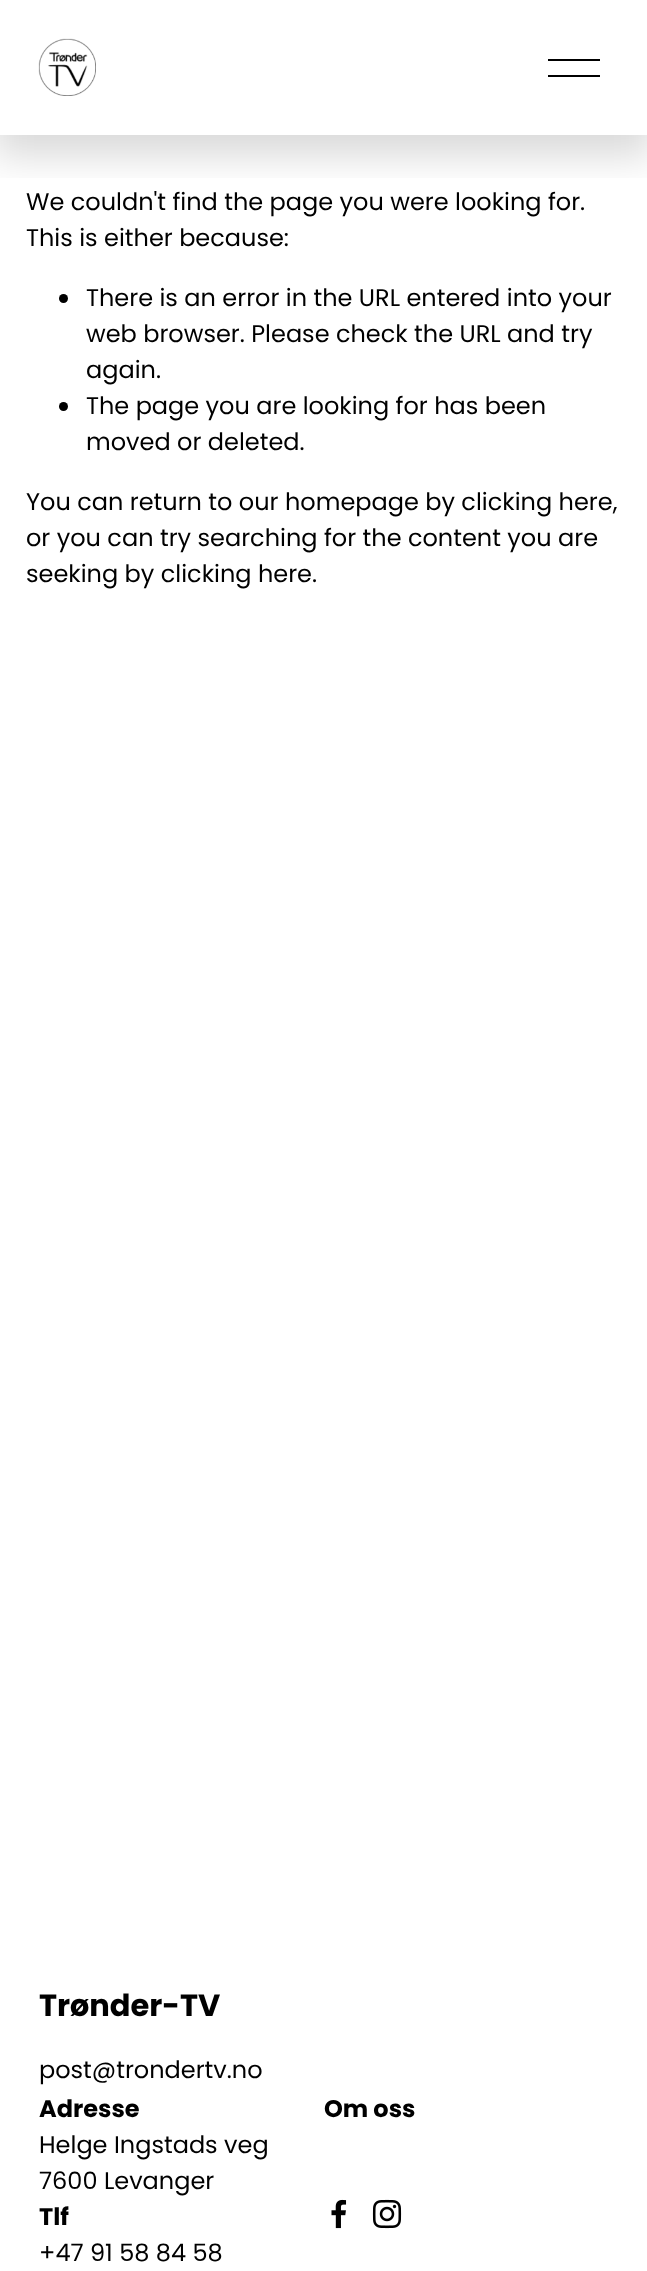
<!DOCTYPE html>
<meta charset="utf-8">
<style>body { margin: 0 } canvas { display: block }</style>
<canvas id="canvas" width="647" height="2271"></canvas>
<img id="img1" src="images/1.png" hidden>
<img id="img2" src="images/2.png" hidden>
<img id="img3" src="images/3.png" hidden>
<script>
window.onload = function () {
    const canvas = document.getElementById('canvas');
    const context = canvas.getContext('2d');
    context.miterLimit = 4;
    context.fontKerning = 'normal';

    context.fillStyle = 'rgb(255, 255, 255)';
    context.fillRect(0, 0, 647, 2271);
    context.save();
    context.beginPath();
    context.rect(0, 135, 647, 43);
    context.clip();
    context.fillStyle = 'rgba(0, 0, 0, 0.15)';
    context.filter = 'blur(19.5px)';
    context.beginPath();
    context.rect(-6, 9, 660, 147);
    context.fill();
    context.filter = 'none';
    context.restore();
    context.drawImage(document.getElementById('img1'), 38, 38, 58, 58);
    context.fillStyle = 'rgb(0, 0, 0)';
    context.fillRect(548, 59, 52, 2);
    context.fillRect(548, 75, 52, 2);
    context.beginPath();
    context.arc(63.5, 298.5, 4.5, 0, 2 * Math.PI);
    context.fill();
    context.beginPath();
    context.arc(63.5, 406.5, 4.5, 0, 2 * Math.PI);
    context.fill();
    context.drawImage(document.getElementById('img2'), 331, 2199, 16, 30);
    context.drawImage(document.getElementById('img3'), 372, 2199, 30, 30);
    context.font = '24px Poppins';
    context.fillText('We couldn\'t find the page you were looking for.', 26, 210);
    context.fillText('This is either because:', 26, 246);
    context.fillText('There is an error in the URL entered into your', 86, 306);
    context.fillText('web browser. Please check the URL and try', 86, 342);
    context.fillText('again.', 86, 378);
    context.fillText('The page you are looking for has been', 86, 414);
    context.fillText('moved or deleted.', 86, 450);
    context.fillText('You can return to our homepage by clicking here,', 26, 510);
    context.fillText('or you can try searching for the content you are', 26, 546);
    context.fillText('seeking by clicking here.', 26, 582);
    context.font = 'bold 30.5px Poppins';
    context.fillText('Trønder-TV', 39, 2016);
    context.font = '24px Poppins';
    context.fillText('post@trondertv.no', 39, 2078);
    context.font = 'bold 24px Poppins';
    context.fillText('Adresse', 39, 2117);
    context.font = '24px Poppins';
    context.fillText('Helge Ingstads veg', 39, 2153);
    context.fillText('7600 Levanger', 39, 2189);
    context.font = 'bold 24px Poppins';
    context.fillText('Tlf', 39, 2225);
    context.font = '24px Poppins';
    context.fillText('+47 91 58 84 58', 39, 2261);
    context.font = 'bold 24px Poppins';
    context.fillText('Om oss', 324, 2117);
};
</script>
